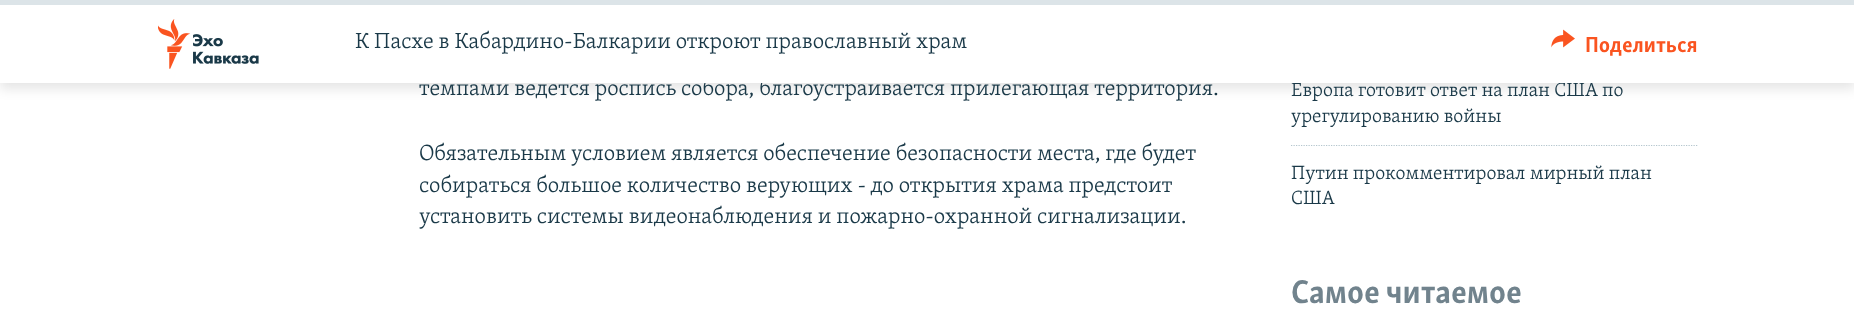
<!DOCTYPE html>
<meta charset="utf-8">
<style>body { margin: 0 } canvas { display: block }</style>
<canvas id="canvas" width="1854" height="311"></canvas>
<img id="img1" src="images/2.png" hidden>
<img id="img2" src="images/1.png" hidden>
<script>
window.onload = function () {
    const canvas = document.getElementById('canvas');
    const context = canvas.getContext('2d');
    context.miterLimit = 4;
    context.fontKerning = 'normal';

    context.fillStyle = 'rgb(255, 255, 255)';
    context.fillRect(0, 0, 1854, 311);
    context.fillStyle = 'rgba(0, 0, 0, 0.1)';
    context.filter = 'blur(6px)';
    context.beginPath();
    context.rect(0, 6, 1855, 83);
    context.fill();
    context.filter = 'none';
    context.fillStyle = 'rgb(220, 228, 232)';
    context.fillRect(0, 0, 1854, 5);
    context.beginPath();
    context.moveTo(1291, 145.5);
    context.lineTo(1697.5, 145.5);
    context.strokeStyle = 'rgb(180, 197, 205)';
    context.lineWidth = 1.2;
    context.setLineDash([1.25, 1.25]);
    context.stroke();
    context.font = '300 22.5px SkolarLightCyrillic';
    context.fillStyle = 'rgb(26, 57, 72)';
    context.fillText('темпами ведется роспись собора, благоустраивается прилегающая территория.', 419, 95);
    context.fillText('Обязательным условием является обеспечение безопасности места, где будет', 419, 160);
    context.fillText('собираться большое количество верующих - до открытия храма предстоит', 419, 192);
    context.fillText('установить системы видеонаблюдения и пожарно-охранной сигнализации.', 419, 223);
    context.font = '300 19.7px SkolarLightCyrillic';
    context.fillText('Европа готовит ответ на план США по', 1291, 96);
    context.fillStyle = 'rgb(255, 255, 255)';
    context.fillRect(0, 5, 1854, 78);
    context.font = '300 22.5px SkolarLightCyrillic';
    context.fillStyle = 'rgb(26, 57, 72)';
    context.fillText('К Пасхе в Кабардино-Балкарии откроют православный храм', 355, 48);
    context.font = 'bold 22.5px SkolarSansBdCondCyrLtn';
    context.fillStyle = 'rgb(250, 84, 32)';
    context.fillText('Поделиться', 1585, 52);
    context.drawImage(document.getElementById('img1'), 1551, 29, 24, 19);
    context.drawImage(document.getElementById('img2'), 158, 19, 101, 50);
    context.font = '300 19.7px SkolarLightCyrillic';
    context.fillStyle = 'rgb(26, 57, 72)';
    context.fillText('урегулированию войны', 1291, 122);
    context.fillText('Путин прокомментировал мирный план', 1291, 179);
    context.fillText('США', 1291, 204);
    context.font = 'bold 33.75px SkolarSansBdCondCyrLtn';
    context.fillStyle = 'rgb(113, 131, 141)';
    context.fillText('Самое читаемое', 1291, 303);
};
</script>
